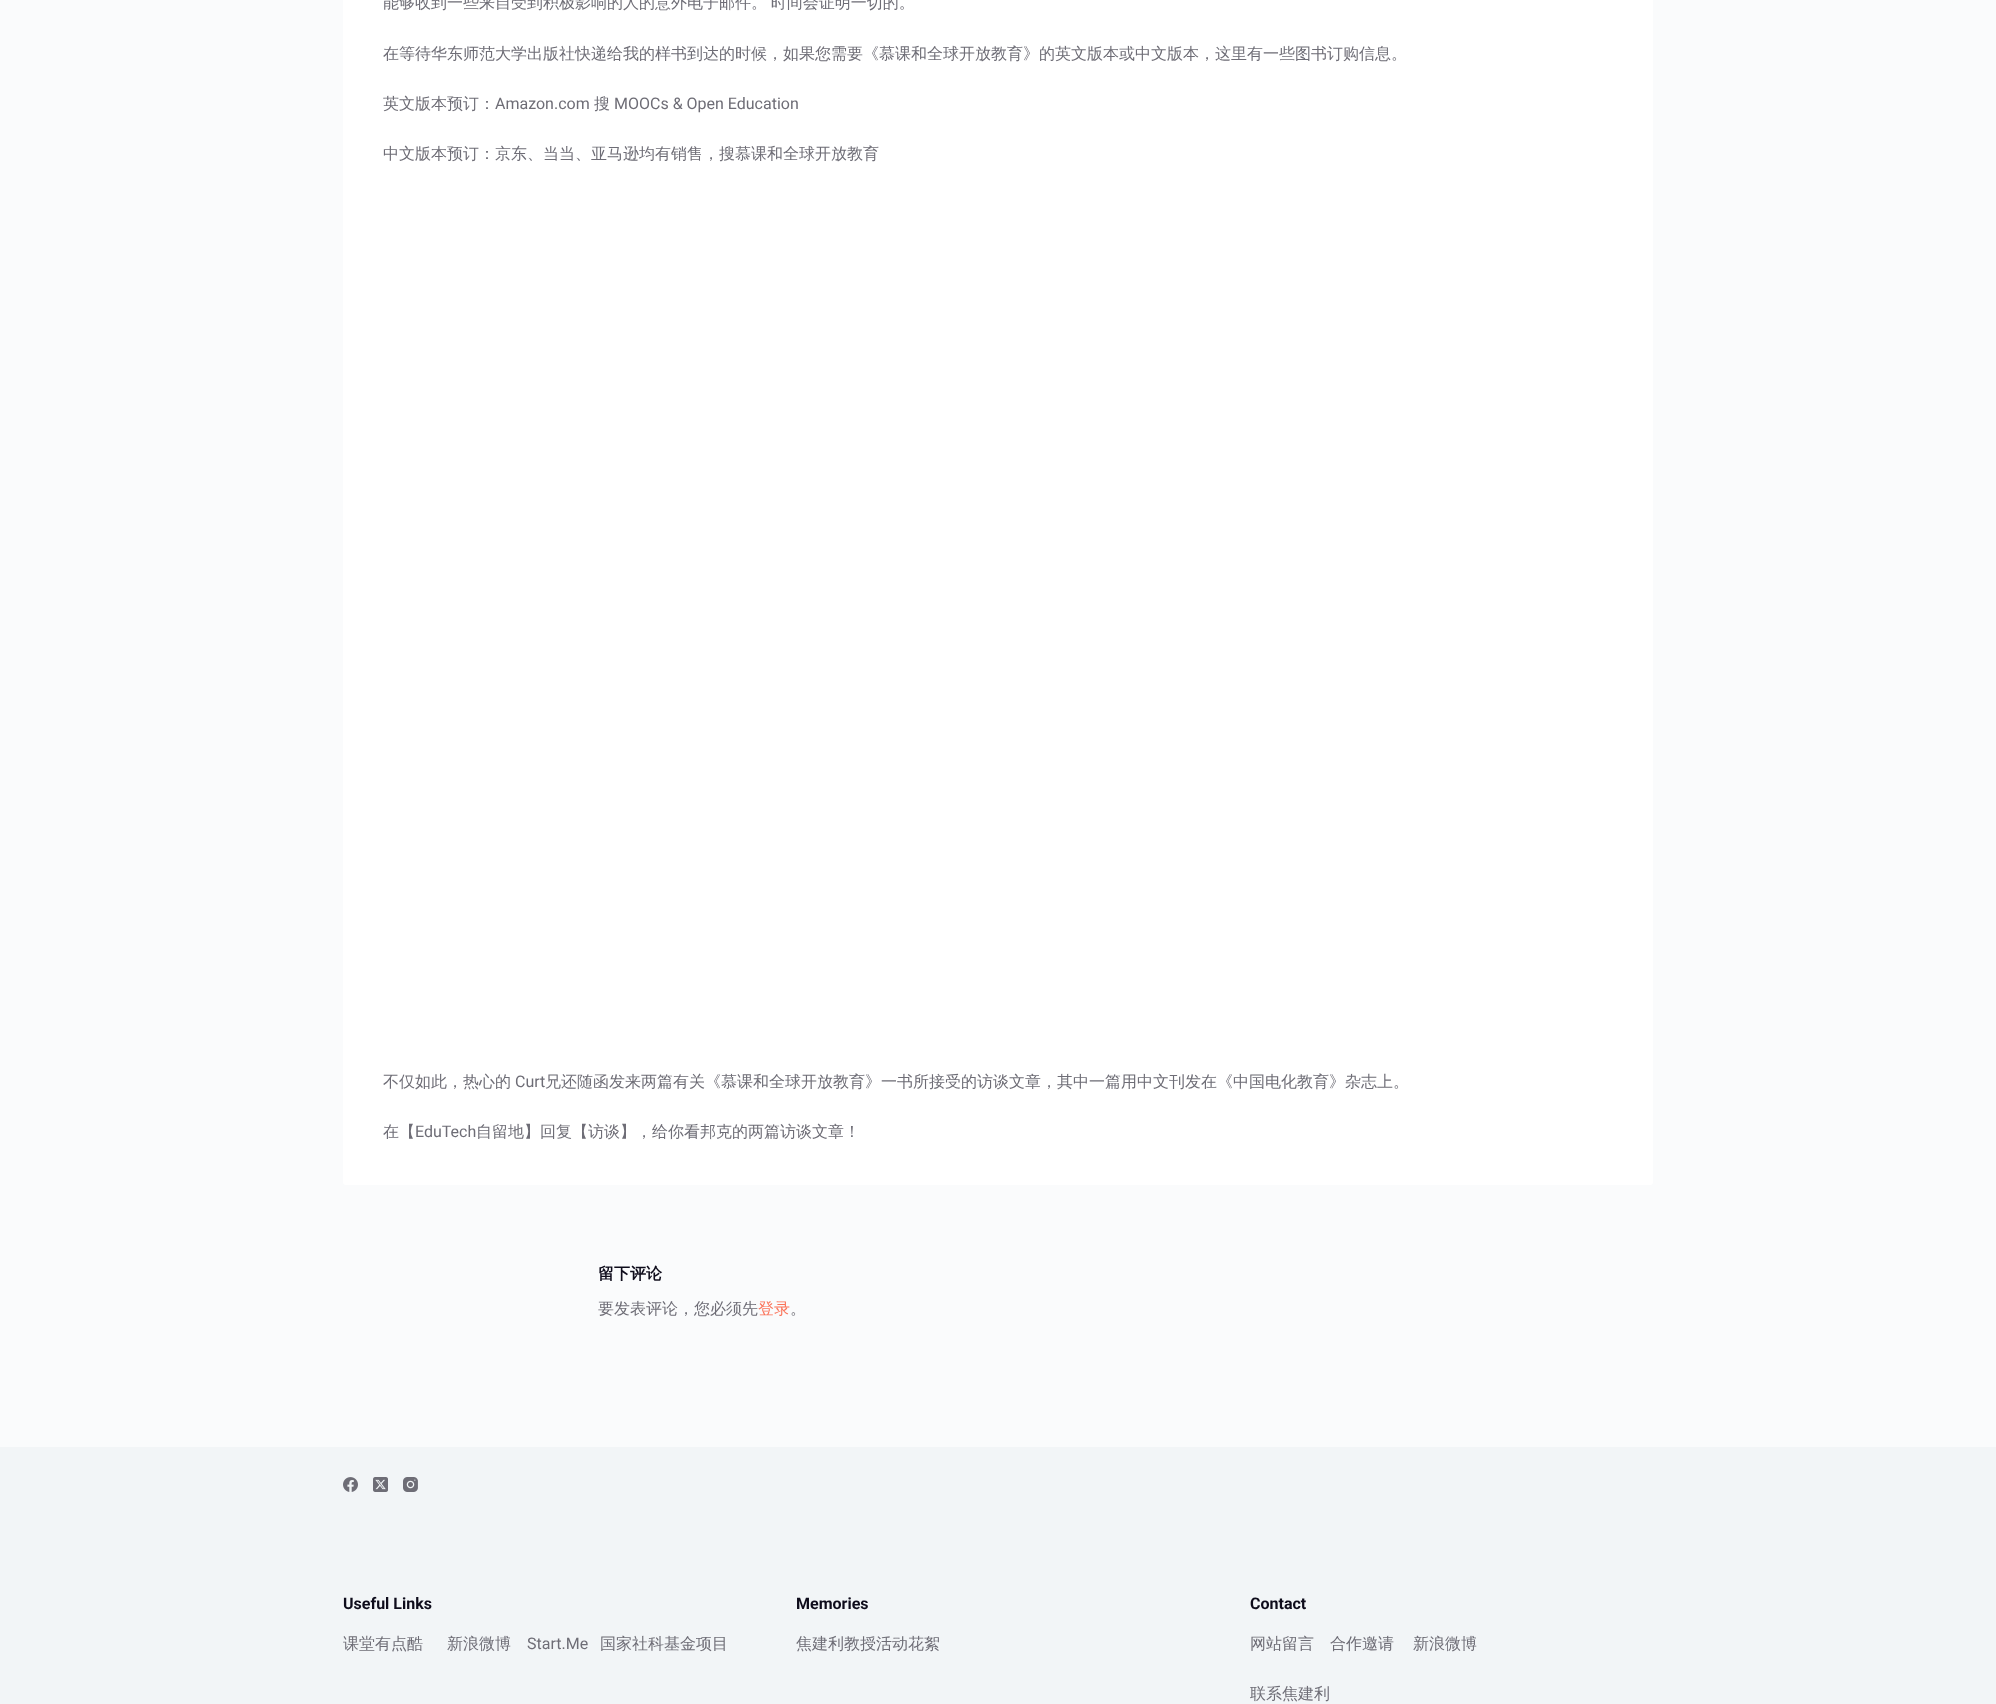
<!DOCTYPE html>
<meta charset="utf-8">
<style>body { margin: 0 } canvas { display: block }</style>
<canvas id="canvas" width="1996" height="1704"></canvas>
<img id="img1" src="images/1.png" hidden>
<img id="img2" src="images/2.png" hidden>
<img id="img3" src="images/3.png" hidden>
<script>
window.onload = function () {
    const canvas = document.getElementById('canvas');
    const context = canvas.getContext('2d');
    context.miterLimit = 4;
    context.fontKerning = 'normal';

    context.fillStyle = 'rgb(250, 251, 252)';
    context.fillRect(0, 0, 1996, 1704);
    context.fillStyle = 'rgb(255, 255, 255)';
    context.beginPath();
    context.roundRect(343, -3, 1310, 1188, 3);
    context.fill();
    context.fillStyle = 'rgb(242, 245, 247)';
    context.fillRect(0, 1447, 1996, 257);
    context.drawImage(document.getElementById('img1'), 343, 1477, 15, 15);
    context.drawImage(document.getElementById('img2'), 373, 1477, 15, 15);
    context.drawImage(document.getElementById('img3'), 403, 1477, 15, 15);
    context.wordSpacing = '-1px';
    context.font = '500 16px WenQuanYi Zen Hei';
    context.fillStyle = 'rgb(110, 109, 118)';
    context.fillText('能够收到一些来自受到积极影响的人的意外电子邮件。 时间会证明一切的。', 383, 8);
    context.wordSpacing = '0px';
    context.fillText('在等待华东师范大学出版社快递给我的样书到达的时候，如果您需要《慕课和全球开放教育》的英文版本或中文版本，这里有一些图书订购信息。', 383, 59);
    context.fillText('英文版本预订：', 383, 109);
    context.font = '16px Roboto';
    context.fillText('Amazon.com', 495, 109);
    context.font = '500 16px WenQuanYi Zen Hei';
    context.fillText('搜', 594, 109);
    context.font = '16px Roboto';
    context.fillText('MOOCs & Open Education', 614, 109);
    context.font = '500 16px WenQuanYi Zen Hei';
    context.fillText('中文版本预订：京东、当当、亚马逊均有销售，搜慕课和全球开放教育', 383, 159);
    context.fillText('不仅如此，热心的', 383, 1087);
    context.font = '16px Roboto';
    context.fillText('Curt', 515, 1087);
    context.font = '500 16px WenQuanYi Zen Hei';
    context.fillText('兄还随函发来两篇有关《慕课和全球开放教育》一书所接受的访谈文章，其中一篇用中文刊发在《中国电化教育》杂志上。', 545, 1087);
    context.fillText('在【', 383, 1137);
    context.font = '16px Roboto';
    context.fillText('EduTech', 415, 1137);
    context.font = '500 16px WenQuanYi Zen Hei';
    context.fillText('自留地】回复【访谈】，给你看邦克的两篇访谈文章！', 476, 1137);
    context.font = 'bold 16px WenQuanYi Zen Hei';
    context.fillStyle = 'rgb(14, 12, 27)';
    context.fillText('留下评论', 598, 1279);
    context.font = '500 16px WenQuanYi Zen Hei';
    context.fillStyle = 'rgb(110, 109, 118)';
    context.fillText('要发表评论，您必须先', 598, 1314);
    context.fillStyle = 'rgb(251, 114, 88)';
    context.fillText('登录', 758, 1314);
    context.fillStyle = 'rgb(110, 109, 118)';
    context.fillText('。', 790, 1314);
    context.font = 'bold 16px Roboto';
    context.fillStyle = 'rgb(14, 12, 27)';
    context.fillText('Useful Links', 343, 1609);
    context.font = '500 16px WenQuanYi Zen Hei';
    context.fillStyle = 'rgb(110, 109, 118)';
    context.fillText('课堂有点酷', 343, 1649);
    context.fillText('新浪微博', 447, 1649);
    context.font = '16px Roboto';
    context.fillText('Start.Me', 527, 1649);
    context.font = '500 16px WenQuanYi Zen Hei';
    context.fillText('国家社科基金项目', 600, 1649);
    context.font = 'bold 16px Roboto';
    context.fillStyle = 'rgb(14, 12, 27)';
    context.fillText('Memories', 796, 1609);
    context.font = '500 16px WenQuanYi Zen Hei';
    context.fillStyle = 'rgb(110, 109, 118)';
    context.fillText('焦建利教授活动花絮', 796, 1649);
    context.font = 'bold 16px Roboto';
    context.fillStyle = 'rgb(14, 12, 27)';
    context.fillText('Contact', 1250, 1609);
    context.font = '500 16px WenQuanYi Zen Hei';
    context.fillStyle = 'rgb(110, 109, 118)';
    context.fillText('网站留言', 1250, 1649);
    context.fillText('合作邀请', 1330, 1649);
    context.fillText('新浪微博', 1413, 1649);
    context.fillText('联系焦建利', 1250, 1699);
};
</script>
